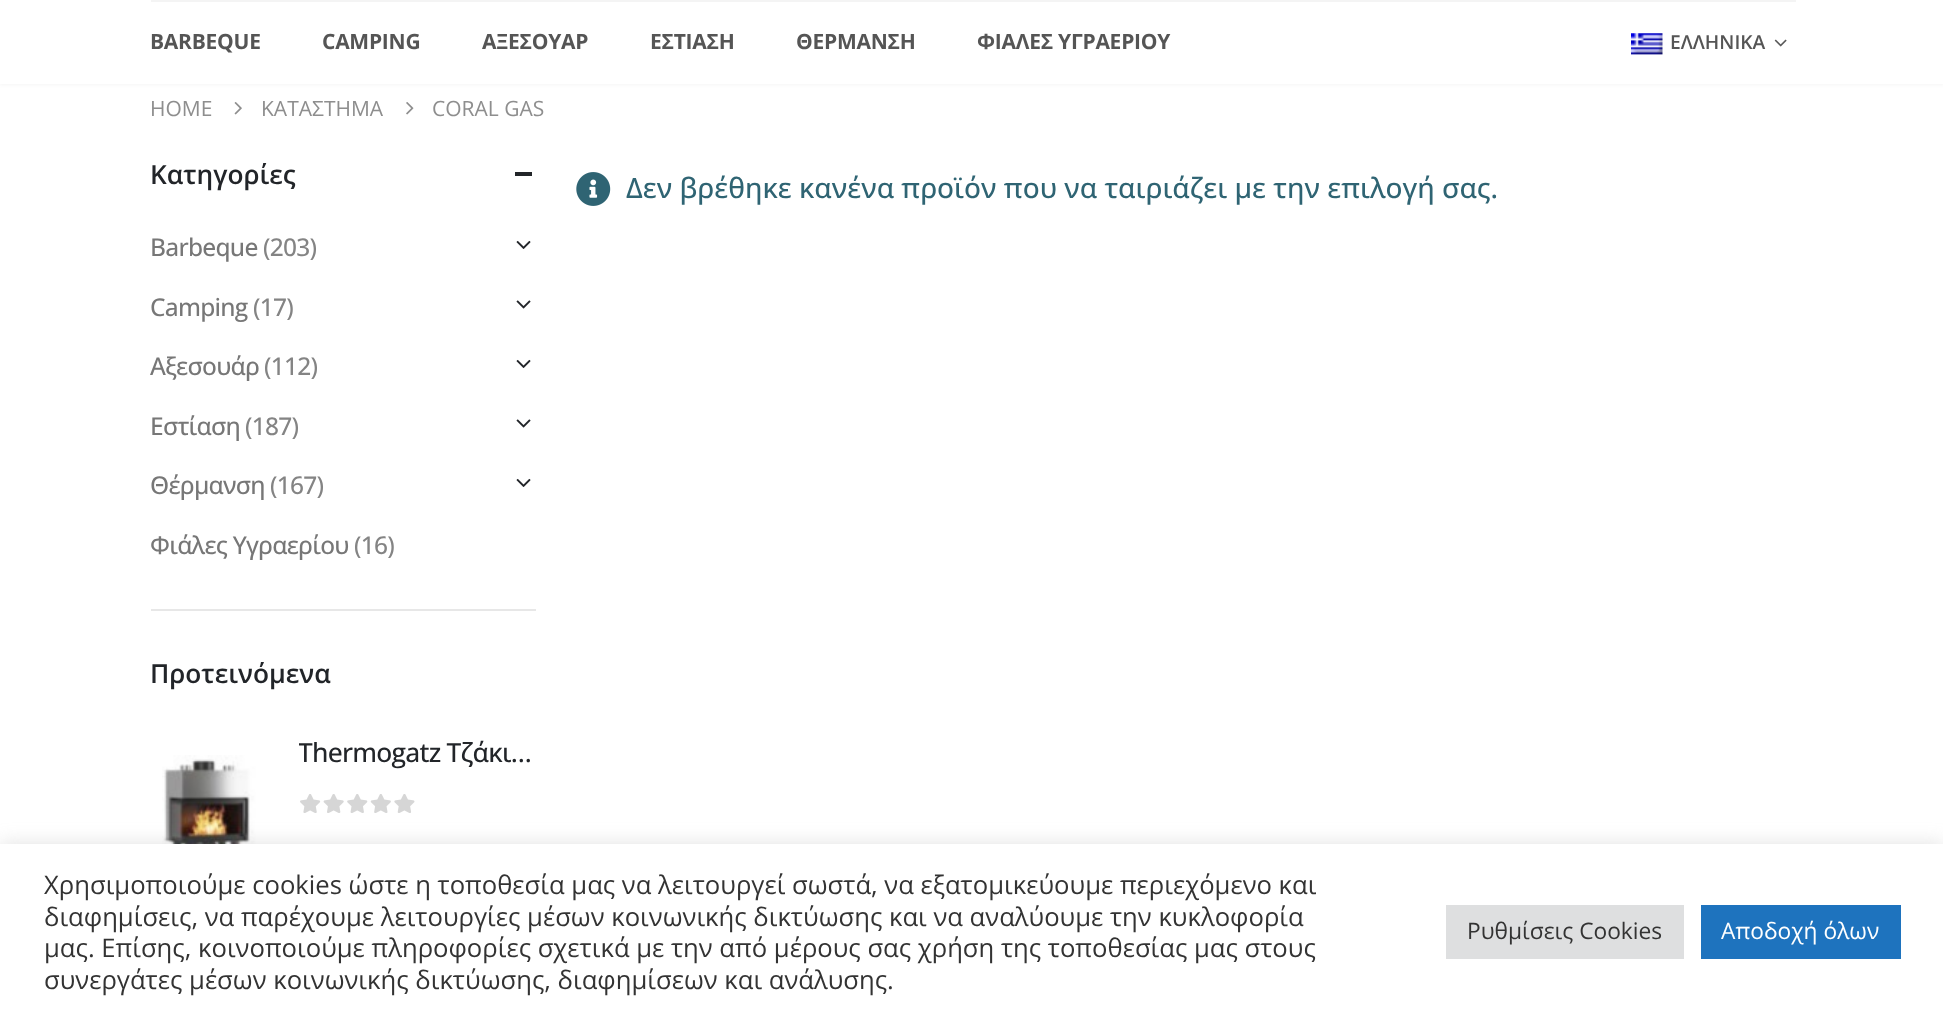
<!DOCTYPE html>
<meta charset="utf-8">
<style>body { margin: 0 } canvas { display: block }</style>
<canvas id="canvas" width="1943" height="1018"></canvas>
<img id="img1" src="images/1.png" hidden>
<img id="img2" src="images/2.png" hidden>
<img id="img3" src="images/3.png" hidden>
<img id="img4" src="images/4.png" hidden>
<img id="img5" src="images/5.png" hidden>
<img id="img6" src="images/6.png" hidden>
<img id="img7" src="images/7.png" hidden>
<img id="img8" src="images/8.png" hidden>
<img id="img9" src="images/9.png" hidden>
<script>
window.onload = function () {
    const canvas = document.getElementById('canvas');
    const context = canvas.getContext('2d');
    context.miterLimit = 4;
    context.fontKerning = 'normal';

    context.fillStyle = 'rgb(255, 255, 255)';
    context.fillRect(0, 0, 1943, 1018);
    context.fillStyle = 'rgba(0, 0, 0, 0.06)';
    context.filter = 'blur(2.5px)';
    context.beginPath();
    context.rect(0, 0, 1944, 84);
    context.fill();
    context.filter = 'none';
    context.fillStyle = 'rgb(255, 255, 255)';
    context.fillRect(0, 0, 1943, 84);
    context.fillStyle = 'rgb(244, 244, 244)';
    context.fillRect(151, 0, 1645, 2);
    context.drawImage(document.getElementById('img1'), 1631, 33, 32, 22);
    context.drawImage(document.getElementById('img2'), 1774, 39, 13, 8);
    context.drawImage(document.getElementById('img3'), 234, 102, 8, 13);
    context.drawImage(document.getElementById('img4'), 406, 102, 8, 13);
    context.fillStyle = 'rgb(231, 231, 231)';
    context.fillRect(151, 609, 385, 2);
    context.fillStyle = 'rgb(34, 37, 41)';
    context.fillRect(515, 172, 17, 4);
    context.drawImage(document.getElementById('img5'), 516, 240, 15, 9);
    context.drawImage(document.getElementById('img6'), 516, 300, 15, 9);
    context.drawImage(document.getElementById('img5'), 516, 359, 15, 9);
    context.drawImage(document.getElementById('img6'), 516, 419, 15, 9);
    context.drawImage(document.getElementById('img5'), 516, 478, 15, 9);
    context.drawImage(document.getElementById('img7'), 162, 755, 95, 89);
    context.drawImage(document.getElementById('img8'), 300, 794, 115, 19);
    context.drawImage(document.getElementById('img9'), 576, 172, 35, 34);
    context.fillStyle = 'rgba(172, 171, 171, 0.3)';
    context.filter = 'blur(9px)';
    context.beginPath();
    context.rect(0, 842, 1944, 175);
    context.fill();
    context.filter = 'none';
    context.fillStyle = 'rgb(255, 255, 255)';
    context.fillRect(0, 844, 1943, 174);
    context.fillStyle = 'rgb(222, 223, 224)';
    context.fillRect(1446, 905, 238, 54);
    context.fillStyle = 'rgb(30, 115, 190)';
    context.fillRect(1701, 905, 200, 54);
    context.letterSpacing = '-0.25px';
    context.font = 'bold 21px Open Sans';
    context.fillStyle = 'rgb(85, 85, 85)';
    context.fillText('BARBEQUE', 150, 49);
    context.fillText('CAMPING', 322, 49);
    context.fillText('ΑΞΕΣΟΥΑΡ', 482, 49);
    context.fillText('ΕΣΤΙΑΣΗ', 650, 49);
    context.fillText('ΘΕΡΜΑΝΣΗ', 796, 49);
    context.fillText('ΦΙΑΛΕΣ ΥΓΡΑΕΡΙΟΥ', 977, 49);
    context.letterSpacing = '0px';
    context.font = '600 19.25px Open Sans';
    context.fillText('ΕΛΛΗΝΙΚΑ', 1670, 49);
    context.font = '21px Open Sans';
    context.fillStyle = 'rgb(142, 142, 142)';
    context.fillText('HOME', 150, 116);
    context.fillText('ΚΑΤΑΣΤΗΜΑ', 261, 116);
    context.fillText('CORAL GAS', 432, 116);
    context.font = '600 26.25px Open Sans';
    context.fillStyle = 'rgb(34, 37, 41)';
    context.fillText('Κατηγορίες', 150, 184);
    context.letterSpacing = '-0.75px';
    context.font = '500 24.5px Open Sans';
    context.fillStyle = 'rgb(119, 119, 119)';
    context.fillText('Barbeque', 150, 256);
    context.fillStyle = 'rgb(132, 132, 132)';
    context.fillText('(203)', 263, 256);
    context.fillStyle = 'rgb(119, 119, 119)';
    context.fillText('Camping', 150, 316);
    context.fillStyle = 'rgb(132, 132, 132)';
    context.fillText('(17)', 253, 316);
    context.fillStyle = 'rgb(119, 119, 119)';
    context.fillText('Αξεσουάρ', 150, 375);
    context.fillStyle = 'rgb(132, 132, 132)';
    context.fillText('(112)', 264, 375);
    context.fillStyle = 'rgb(119, 119, 119)';
    context.fillText('Εστίαση', 150, 435);
    context.fillStyle = 'rgb(132, 132, 132)';
    context.fillText('(187)', 245, 435);
    context.fillStyle = 'rgb(119, 119, 119)';
    context.fillText('Θέρμανση', 150, 494);
    context.fillStyle = 'rgb(132, 132, 132)';
    context.fillText('(167)', 270, 494);
    context.fillStyle = 'rgb(119, 119, 119)';
    context.fillText('Φιάλες Υγραερίου', 150, 554);
    context.fillStyle = 'rgb(132, 132, 132)';
    context.fillText('(16)', 354, 554);
    context.letterSpacing = '0px';
    context.font = '600 26.25px Open Sans';
    context.fillStyle = 'rgb(34, 37, 41)';
    context.fillText('Προτεινόμενα', 150, 683);
    context.save();
    context.beginPath();
    context.rect(299, 725, 237, 54);
    context.clip();
    context.letterSpacing = '-0.75px';
    context.font = '500 26.4px Open Sans';
    context.fillText('Thermogatz Τζάκι…', 298, 762);
    context.restore();
    context.font = '500 28px Open Sans';
    context.fillStyle = 'rgb(47, 100, 115)';
    context.fillText('Δεν βρέθηκε κανένα προϊόν που να ταιριάζει με την επιλογή σας.', 626, 198);
    context.font = '25.65px Open Sans';
    context.fillStyle = 'rgb(51, 51, 51)';
    context.fillText('Χρησιμοποιούμε cookies ώστε η τοποθεσία μας να λειτουργεί σωστά, να εξατομικεύουμε περιεχόμενο και', 44, 894);
    context.fillText('διαφημίσεις, να παρέχουμε λειτουργίες μέσων κοινωνικής δικτύωσης και να αναλύουμε την κυκλοφορία', 44, 926);
    context.fillText('μας. Επίσης, κοινοποιούμε πληροφορίες σχετικά με την από μέρους σας χρήση της τοποθεσίας μας στους', 44, 957);
    context.fillText('συνεργάτες μέσων κοινωνικής δικτύωσης, διαφημίσεων και ανάλυσης.', 44, 989);
    context.font = '22.75px Open Sans';
    context.fillText('Ρυθμίσεις Cookies', 1467, 939);
    context.fillStyle = 'rgb(255, 255, 255)';
    context.fillText('Αποδοχή όλων', 1721, 939);
};
</script>
